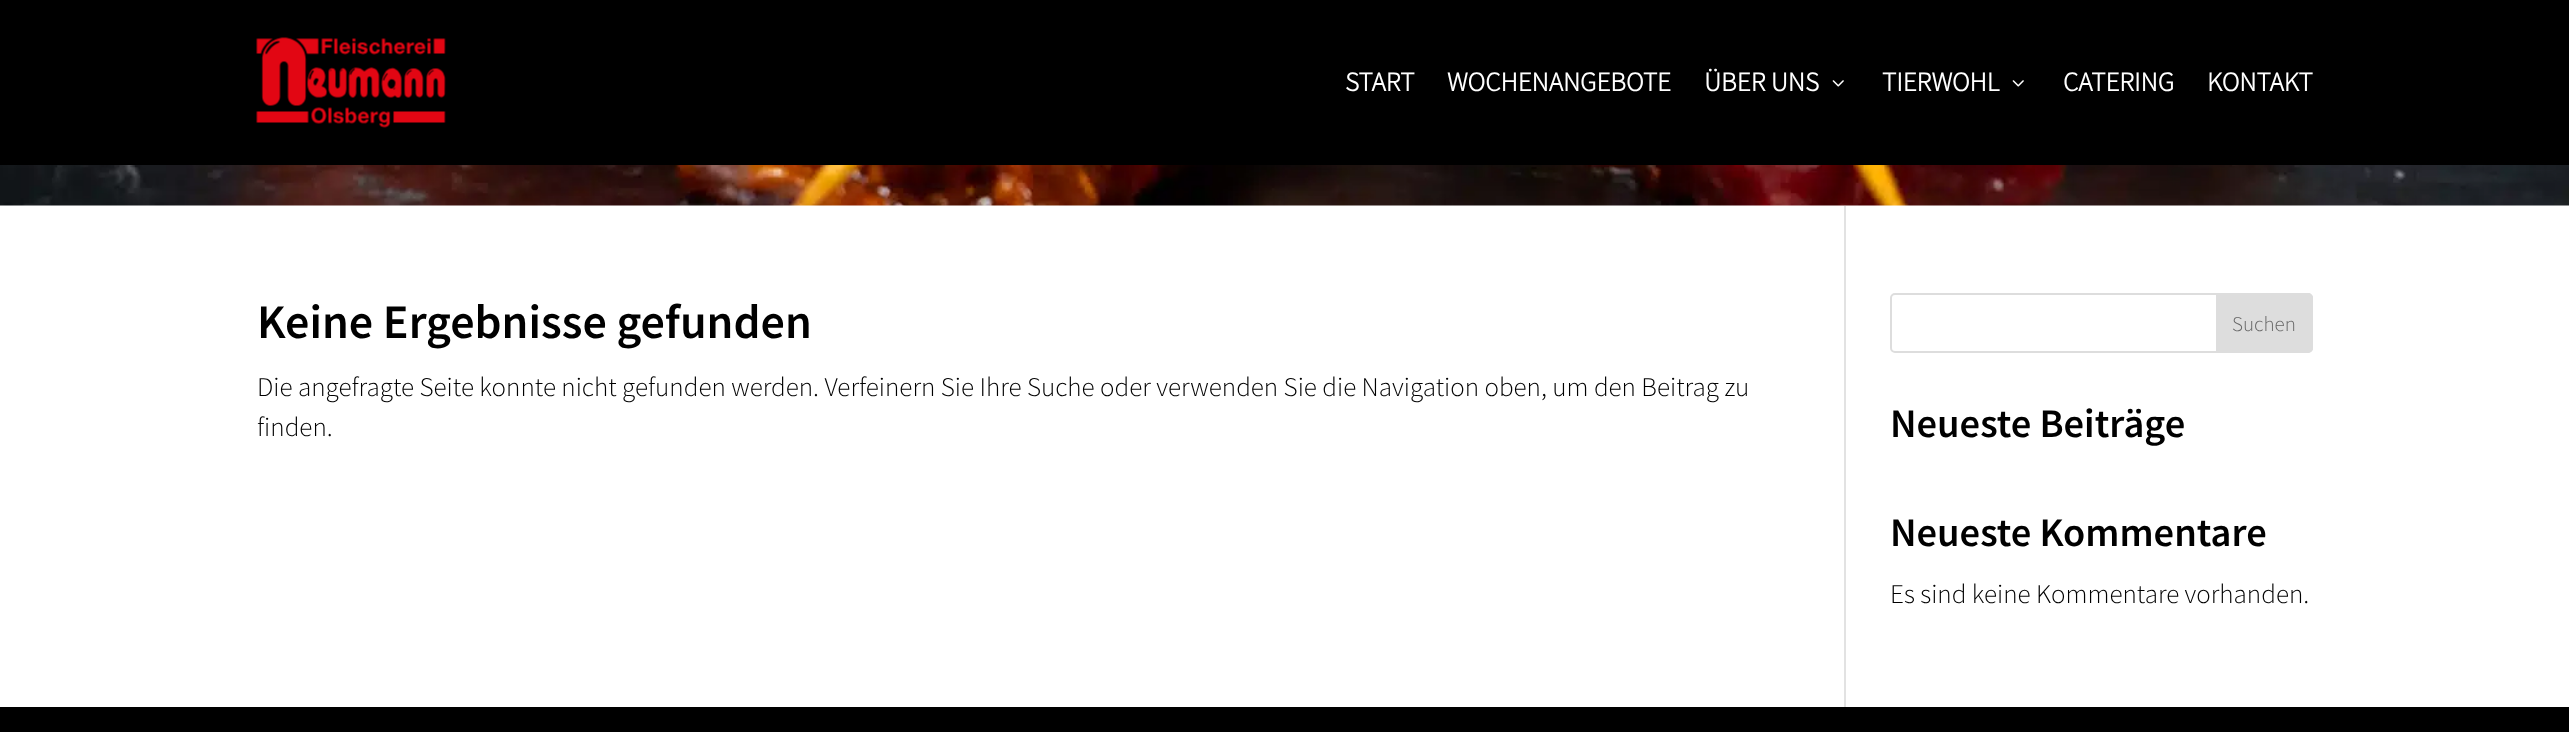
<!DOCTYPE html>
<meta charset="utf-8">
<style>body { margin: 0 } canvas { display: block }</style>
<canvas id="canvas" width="2569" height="732"></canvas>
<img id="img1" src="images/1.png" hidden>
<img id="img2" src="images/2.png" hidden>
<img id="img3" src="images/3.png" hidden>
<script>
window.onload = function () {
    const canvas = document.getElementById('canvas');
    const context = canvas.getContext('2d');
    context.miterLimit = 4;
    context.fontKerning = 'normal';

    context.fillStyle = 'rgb(255, 255, 255)';
    context.fillRect(0, 0, 2569, 732);
    context.fillStyle = 'rgb(0, 0, 0)';
    context.fillRect(0, 0, 2569, 165);
    context.drawImage(document.getElementById('img1'), 256, 37, 190, 91);
    context.drawImage(document.getElementById('img2'), 1832, 80, 12, 7);
    context.drawImage(document.getElementById('img2'), 2012, 80, 12, 7);
    context.drawImage(document.getElementById('img3'), 0, 165, 2569, 41);
    context.fillStyle = 'rgb(226, 226, 226)';
    context.fillRect(1844, 206, 2, 501);
    context.beginPath();
    context.roundRect(1891, 294, 421, 58, 4);
    context.strokeStyle = 'rgb(221, 221, 221)';
    context.lineWidth = 2;
    context.stroke();
    context.fillStyle = 'rgb(221, 221, 221)';
    context.beginPath();
    context.roundRect(2217, 294, 95, 58, [0, 4, 4, 0]);
    context.fill();
    context.stroke();
    context.fillStyle = 'rgb(0, 0, 0)';
    context.fillRect(0, 707, 2569, 25);
    context.font = 'bold 27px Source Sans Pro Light';
    context.fillStyle = 'rgb(255, 255, 255)';
    context.fillText('START', 1345, 91);
    context.fillText('WOCHENANGEBOTE', 1447, 91);
    context.fillText('ÜBER UNS', 1704, 91);
    context.fillText('TIERWOHL', 1882, 91);
    context.fillText('CATERING', 2063, 91);
    context.fillText('KONTAKT', 2207, 91);
    context.font = '600 48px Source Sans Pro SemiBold';
    context.fillStyle = 'rgb(0, 0, 0)';
    context.fillText('Keine Ergebnisse gefunden', 257, 338);
    context.font = '300 27px Source Sans Pro Light';
    context.fillText('Die angefragte Seite konnte nicht gefunden werden. Verfeinern Sie Ihre Suche oder verwenden Sie die Navigation oben, um den Beitrag zu', 257, 396);
    context.fillText('finden.', 257, 436);
    context.font = '300 21px Source Sans Pro Light';
    context.fillStyle = 'rgb(102, 102, 102)';
    context.fillText('Suchen', 2232, 331);
    context.font = '600 40.5px Source Sans Pro SemiBold';
    context.fillStyle = 'rgb(0, 0, 0)';
    context.fillText('Neueste Beiträge', 1890, 437);
    context.fillText('Neueste Kommentare', 1890, 546);
    context.font = '300 27px Source Sans Pro Light';
    context.fillText('Es sind keine Kommentare vorhanden.', 1890, 603);
};
</script>
